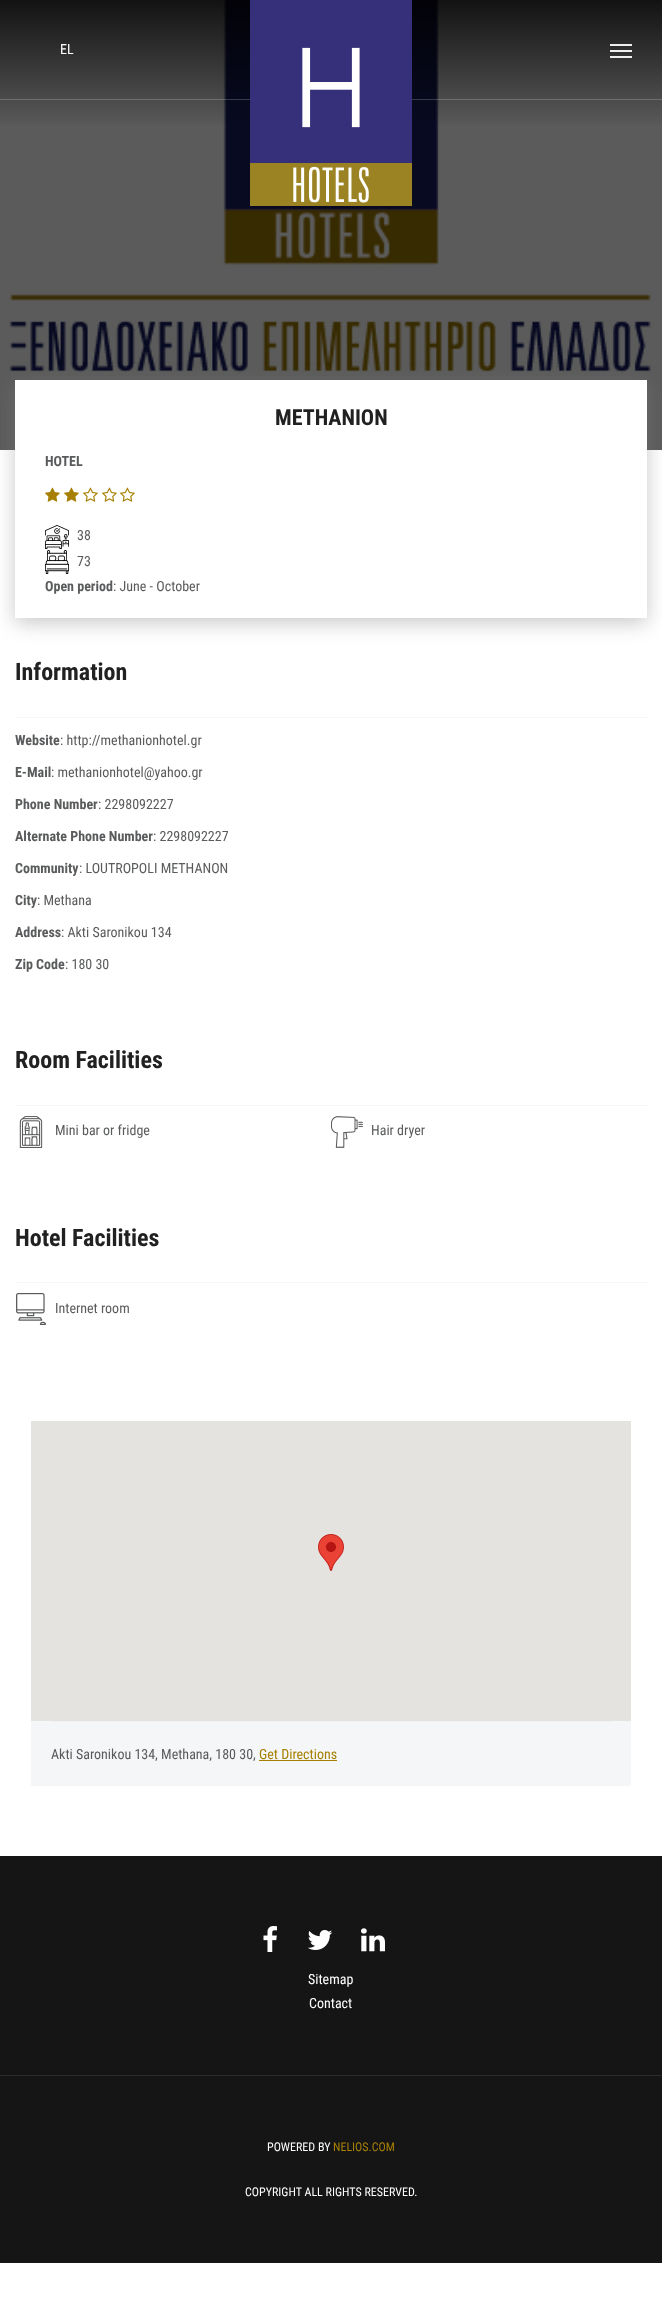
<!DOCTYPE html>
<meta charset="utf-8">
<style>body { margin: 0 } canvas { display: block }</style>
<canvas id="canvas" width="662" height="2309"></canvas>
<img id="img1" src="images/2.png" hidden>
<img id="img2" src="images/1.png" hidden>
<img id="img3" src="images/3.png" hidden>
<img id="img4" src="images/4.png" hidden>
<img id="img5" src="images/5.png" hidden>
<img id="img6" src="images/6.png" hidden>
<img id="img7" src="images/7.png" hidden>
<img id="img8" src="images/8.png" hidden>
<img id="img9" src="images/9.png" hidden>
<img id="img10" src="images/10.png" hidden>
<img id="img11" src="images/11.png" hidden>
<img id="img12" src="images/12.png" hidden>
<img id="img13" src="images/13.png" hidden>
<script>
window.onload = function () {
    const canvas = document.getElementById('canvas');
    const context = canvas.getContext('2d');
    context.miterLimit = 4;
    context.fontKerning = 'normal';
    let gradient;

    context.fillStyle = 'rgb(255, 255, 255)';
    context.fillRect(0, 0, 662, 2309);
    context.fillStyle = 'rgb(91, 91, 91)';
    context.fillRect(0, 0, 662, 450);
    context.drawImage(document.getElementById('img1'), 7, 0, 644, 450);
    gradient = context.createLinearGradient(331, 0, 331, 129);
    gradient.addColorStop(0, 'rgba(0, 0, 0, 0.8)');
    gradient.addColorStop(1, 'rgba(0, 0, 0, 0)');
    context.fillStyle = gradient;
    context.fillRect(0, 0, 662, 124);
    context.fillStyle = 'rgba(255, 255, 255, 0.2)';
    context.fillRect(0, 99, 662, 1);
    context.drawImage(document.getElementById('img2'), 250, 0, 162, 206);
    context.fillStyle = 'rgb(238, 238, 238)';
    context.fillRect(610, 44, 22, 2);
    context.fillRect(610, 50, 22, 2);
    context.fillRect(610, 56, 22, 2);
    context.fillStyle = 'rgba(129, 129, 129, 0.44)';
    context.filter = 'blur(10px)';
    context.beginPath();
    context.rect(15, 385, 632, 238);
    context.fill();
    context.filter = 'none';
    context.fillStyle = 'rgb(255, 255, 255)';
    context.fillRect(15, 380, 632, 238);
    context.drawImage(document.getElementById('img3'), 45, 487, 15, 15);
    context.drawImage(document.getElementById('img3'), 64, 487, 15, 15);
    context.drawImage(document.getElementById('img4'), 83, 487, 15, 15);
    context.drawImage(document.getElementById('img4'), 102, 487, 15, 15);
    context.drawImage(document.getElementById('img4'), 120, 487, 15, 15);
    context.drawImage(document.getElementById('img5'), 45, 525, 24, 24);
    context.drawImage(document.getElementById('img6'), 45, 550, 24, 24);
    context.fillStyle = 'rgb(244, 246, 248)';
    context.fillRect(15, 717, 632, 1);
    context.fillRect(15, 1105, 632, 1);
    context.drawImage(document.getElementById('img7'), 19, 1116, 24, 32);
    context.drawImage(document.getElementById('img8'), 331, 1116, 32, 32);
    context.fillRect(15, 1282, 632, 1);
    context.drawImage(document.getElementById('img9'), 16, 1293, 30, 32);
    context.fillRect(31, 1721, 600, 65);
    context.fillStyle = 'rgb(229, 227, 223)';
    context.fillRect(31, 1421, 600, 300);
    context.drawImage(document.getElementById('img10'), 318, 1534, 26, 37);
    context.fillStyle = 'rgb(241, 241, 241)';
    context.fillRect(51, 1721, 560, 1);
    context.fillStyle = 'rgb(167, 128, 3)';
    context.fillRect(259, 1760, 78, 1);
    context.fillStyle = 'rgb(21, 21, 22)';
    context.fillRect(0, 1856, 662, 407);
    context.drawImage(document.getElementById('img11'), 263, 1926, 14, 26);
    context.drawImage(document.getElementById('img12'), 307, 1930, 26, 20);
    context.drawImage(document.getElementById('img13'), 361, 1928, 24, 24);
    context.fillStyle = 'rgb(44, 44, 45)';
    context.fillRect(0, 2075, 662, 1);
    context.font = '14px Roboto Condensed';
    context.fillStyle = 'rgb(255, 255, 255)';
    context.fillText('EL', 60, 54);
    context.font = 'bold 22px Roboto Condensed';
    context.fillStyle = 'rgb(33, 33, 34)';
    context.fillText('METHANION', 275, 425);
    context.font = 'bold 14px Roboto Condensed';
    context.fillStyle = 'rgb(90, 91, 92)';
    context.fillText('HOTEL', 45, 466);
    context.font = '14px Roboto Condensed';
    context.fillText('38', 77, 540);
    context.fillText('73', 77, 566);
    context.font = 'bold 14px Roboto Condensed';
    context.fillText('Open period', 45, 591);
    context.font = '14px Roboto Condensed';
    context.fillText(': June - October', 113, 591);
    context.font = 'bold 24px Roboto Condensed';
    context.fillStyle = 'rgb(33, 33, 34)';
    context.fillText('Information', 15, 680);
    context.font = 'bold 14px Roboto Condensed';
    context.fillStyle = 'rgb(90, 91, 92)';
    context.fillText('Website', 15, 745);
    context.font = '14px Roboto Condensed';
    context.fillText(': http://methanionhotel.gr', 60, 745);
    context.font = 'bold 14px Roboto Condensed';
    context.fillText('E-Mail', 15, 777);
    context.font = '14px Roboto Condensed';
    context.fillText(': methanionhotel@yahoo.gr', 51, 777);
    context.font = 'bold 14px Roboto Condensed';
    context.fillText('Phone Number', 15, 809);
    context.font = '14px Roboto Condensed';
    context.fillText(': 2298092227', 98, 809);
    context.font = 'bold 14px Roboto Condensed';
    context.fillText('Alternate Phone Number', 15, 841);
    context.font = '14px Roboto Condensed';
    context.fillText(': 2298092227', 153, 841);
    context.font = 'bold 14px Roboto Condensed';
    context.fillText('Community', 15, 873);
    context.font = '14px Roboto Condensed';
    context.fillText(': LOUTROPOLI METHANON', 79, 873);
    context.font = 'bold 14px Roboto Condensed';
    context.fillText('City', 15, 905);
    context.font = '14px Roboto Condensed';
    context.fillText(': Methana', 37, 905);
    context.font = 'bold 14px Roboto Condensed';
    context.fillText('Address', 15, 937);
    context.font = '14px Roboto Condensed';
    context.fillText(': Akti Saronikou 134', 61, 937);
    context.font = 'bold 14px Roboto Condensed';
    context.fillText('Zip Code', 15, 969);
    context.font = '14px Roboto Condensed';
    context.fillText(': 180 30', 65, 969);
    context.font = 'bold 24px Roboto Condensed';
    context.fillStyle = 'rgb(33, 33, 34)';
    context.fillText('Room Facilities', 15, 1068);
    context.font = '14px Roboto Condensed';
    context.fillStyle = 'rgb(90, 91, 92)';
    context.fillText('Mini bar or fridge', 55, 1135);
    context.fillText('Hair dryer', 371, 1135);
    context.font = 'bold 24px Roboto Condensed';
    context.fillStyle = 'rgb(33, 33, 34)';
    context.fillText('Hotel Facilities', 15, 1246);
    context.font = '14px Roboto Condensed';
    context.fillStyle = 'rgb(90, 91, 92)';
    context.fillText('Internet room', 55, 1313);
    context.fillText('Akti Saronikou 134, Methana, 180 30,', 51, 1759);
    context.fillStyle = 'rgb(167, 128, 3)';
    context.fillText('Get Directions', 259, 1759);
    context.fillStyle = 'rgb(255, 255, 255)';
    context.fillText('Sitemap', 308, 1984);
    context.fillText('Contact', 309, 2008);
    context.font = '12px Roboto Condensed';
    context.fillText('POWERED BY', 267, 2151);
    context.fillStyle = 'rgb(167, 128, 3)';
    context.fillText('NELIOS.COM', 333, 2151);
    context.fillStyle = 'rgb(255, 255, 255)';
    context.fillText('COPYRIGHT ALL RIGHTS RESERVED.', 245, 2196);
};
</script>
